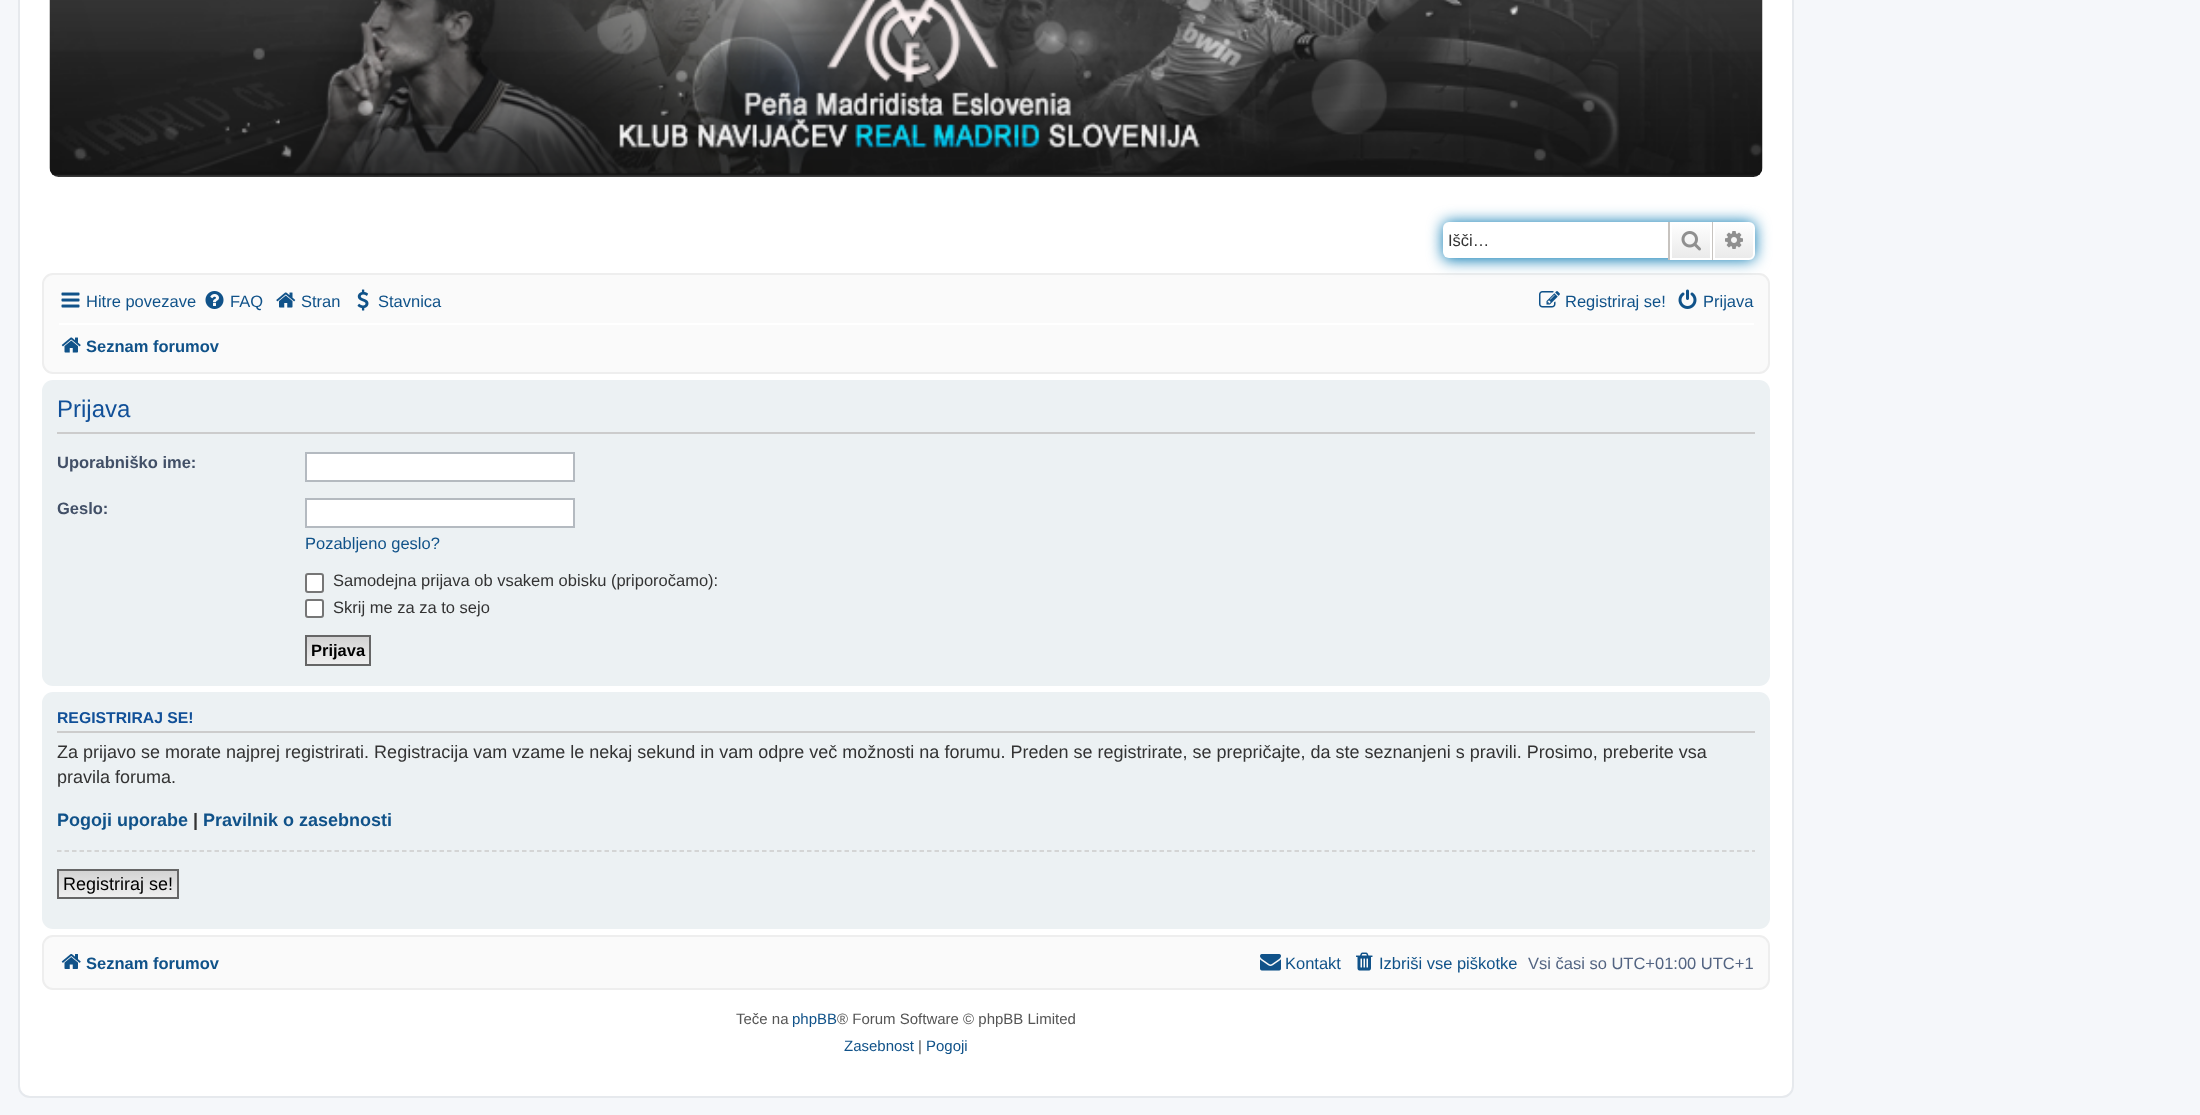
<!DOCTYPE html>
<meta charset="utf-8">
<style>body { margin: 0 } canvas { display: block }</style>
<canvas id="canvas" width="2200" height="1115"></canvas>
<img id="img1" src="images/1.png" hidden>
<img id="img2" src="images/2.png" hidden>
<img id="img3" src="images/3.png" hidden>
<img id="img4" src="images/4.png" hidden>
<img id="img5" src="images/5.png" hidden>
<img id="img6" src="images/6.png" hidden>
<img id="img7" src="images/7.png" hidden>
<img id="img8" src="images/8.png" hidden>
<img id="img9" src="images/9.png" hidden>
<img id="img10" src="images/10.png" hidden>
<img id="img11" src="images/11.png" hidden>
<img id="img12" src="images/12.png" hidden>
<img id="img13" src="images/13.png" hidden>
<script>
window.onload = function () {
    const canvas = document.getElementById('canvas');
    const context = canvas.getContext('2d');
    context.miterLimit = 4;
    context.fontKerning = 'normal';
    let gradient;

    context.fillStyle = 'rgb(245, 247, 250)';
    context.fillRect(0, 0, 2200, 1115);
    context.fillStyle = 'rgb(255, 255, 255)';
    context.beginPath();
    context.roundRect(19, -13, 1774, 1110, 11);
    context.fill();
    context.strokeStyle = 'rgb(230, 233, 237)';
    context.lineWidth = 2;
    context.stroke();
    context.drawImage(document.getElementById('img1'), 49, 0, 1714, 177);
    context.fillStyle = 'rgb(250, 250, 250)';
    context.beginPath();
    context.roundRect(43, 274, 1726, 99, 10);
    context.fill();
    context.strokeStyle = 'rgb(238, 238, 238)';
    context.stroke();
    context.fillStyle = 'rgb(0, 117, 176)';
    context.filter = 'blur(7.5px)';
    context.beginPath();
    context.roundRect(1443, 222, 312, 38, 6);
    context.fill();
    context.filter = 'none';
    context.fillStyle = 'rgb(255, 255, 255)';
    context.beginPath();
    context.roundRect(1443, 222, 225, 36, [6, 0, 0, 6]);
    context.fill();
    gradient = context.createLinearGradient(1691, 222, 1691, 260);
    gradient.addColorStop(0, 'rgb(255, 255, 255)');
    gradient.addColorStop(1, 'rgb(233, 233, 233)');
    context.fillStyle = gradient;
    context.fillRect(1672, 224, 38, 34);
    context.strokeStyle = 'rgb(255, 255, 255)';
    context.strokeRect(1671, 223, 40, 36);
    context.fillStyle = 'rgb(199, 195, 191)';
    context.fillRect(1712, 222, 1, 38);
    context.fillRect(1668, 222, 2, 38);
    context.drawImage(document.getElementById('img2'), 1681, 231, 20, 20);
    gradient = context.createLinearGradient(1734, 222, 1734, 260);
    gradient.addColorStop(0, 'rgb(255, 255, 255)');
    gradient.addColorStop(1, 'rgb(233, 233, 233)');
    context.fillStyle = gradient;
    context.beginPath();
    context.roundRect(1714, 223, 40, 36, [0, 5, 5, 0]);
    context.fill();
    context.stroke();
    context.drawImage(document.getElementById('img3'), 1725, 231, 18, 18);
    context.drawImage(document.getElementById('img4'), 61, 292, 19, 16);
    context.drawImage(document.getElementById('img5'), 205, 291, 19, 18);
    context.drawImage(document.getElementById('img6'), 276, 292, 20, 16);
    context.drawImage(document.getElementById('img7'), 357, 289, 12, 22);
    context.drawImage(document.getElementById('img8'), 1539, 291, 21, 17);
    context.drawImage(document.getElementById('img9'), 1678, 289, 19, 20);
    context.fillStyle = 'rgb(255, 255, 255)';
    context.fillRect(59, 323, 1695, 2);
    context.drawImage(document.getElementById('img10'), 61, 337, 20, 16);
    context.fillStyle = 'rgb(236, 241, 243)';
    context.beginPath();
    context.roundRect(42, 380, 1728, 306, 11);
    context.fill();
    context.fillStyle = 'rgb(204, 204, 204)';
    context.fillRect(57, 432, 1698, 2);
    context.fillStyle = 'rgb(255, 255, 255)';
    context.beginPath();
    context.rect(306, 453, 268, 28);
    context.fill();
    context.strokeStyle = 'rgb(180, 186, 192)';
    context.stroke();
    context.beginPath();
    context.rect(306, 499, 268, 28);
    context.fill();
    context.stroke();
    context.beginPath();
    context.roundRect(306, 574, 17, 18, 2);
    context.fill();
    context.strokeStyle = 'rgb(118, 118, 118)';
    context.stroke();
    context.beginPath();
    context.roundRect(306, 600, 17, 17, 2);
    context.fill();
    context.stroke();
    gradient = context.createLinearGradient(338, 636, 338, 665);
    gradient.addColorStop(0, 'rgb(210, 210, 210)');
    gradient.addColorStop(1, 'rgb(239, 239, 239)');
    context.fillStyle = gradient;
    context.fillRect(307, 637, 62, 27);
    context.strokeStyle = 'rgb(102, 102, 102)';
    context.strokeRect(306, 636, 64, 29);
    context.fillStyle = 'rgb(236, 241, 243)';
    context.beginPath();
    context.roundRect(42, 692, 1728, 237, 11);
    context.fill();
    context.fillStyle = 'rgb(204, 204, 204)';
    context.fillRect(57, 731, 1698, 2);
    context.beginPath();
    context.moveTo(57, 851);
    context.lineTo(1755, 851);
    context.strokeStyle = 'rgb(204, 204, 204)';
    context.lineWidth = 1.5;
    context.setLineDash([4.5, 3]);
    context.stroke();
    gradient = context.createLinearGradient(118, 870, 118, 897);
    gradient.addColorStop(0, 'rgb(210, 210, 210)');
    gradient.addColorStop(1, 'rgb(239, 239, 239)');
    context.fillStyle = gradient;
    context.fillRect(59, 871, 118, 26);
    context.strokeStyle = 'rgb(102, 102, 102)';
    context.lineWidth = 2;
    context.setLineDash([]);
    context.strokeRect(58, 870, 120, 28);
    context.fillStyle = 'rgb(250, 250, 250)';
    context.beginPath();
    context.roundRect(43, 936, 1726, 53, 10);
    context.fill();
    context.strokeStyle = 'rgb(238, 238, 238)';
    context.stroke();
    context.drawImage(document.getElementById('img11'), 61, 954, 20, 15);
    context.drawImage(document.getElementById('img12'), 1260, 954, 21, 17);
    context.drawImage(document.getElementById('img13'), 1356, 952, 17, 19);
    context.font = '16.5px Liberation Sans';
    context.fillStyle = 'rgb(51, 51, 51)';
    context.fillText('Išči…', 1448, 246);
    context.fillStyle = 'rgb(16, 82, 137)';
    context.fillText('Hitre povezave', 86, 307);
    context.fillText('FAQ', 230, 307);
    context.fillText('Stran', 301, 307);
    context.fillText('Stavnica', 378, 307);
    context.fillText('Registriraj se!', 1565, 307);
    context.fillText('Prijava', 1703, 307);
    context.font = 'bold 16.5px Liberation Sans';
    context.fillText('Seznam forumov', 86, 352);
    context.font = '24px Liberation Sans';
    context.fillStyle = 'rgb(17, 80, 152)';
    context.fillText('Prijava', 57, 417);
    context.font = 'bold 16.5px Liberation Sans';
    context.fillStyle = 'rgb(66, 80, 103)';
    context.fillText('Uporabniško ime:', 57, 468);
    context.fillText('Geslo:', 57, 514);
    context.font = '16.5px Liberation Sans';
    context.fillStyle = 'rgb(16, 82, 137)';
    context.fillText('Pozabljeno geslo?', 305, 549);
    context.fillStyle = 'rgb(51, 51, 51)';
    context.fillText('Samodejna prijava ob vsakem obisku (priporočamo):', 333, 586);
    context.fillText('Skrij me za za to sejo', 333, 613);
    context.font = 'bold 16.5px Liberation Sans';
    context.fillStyle = 'rgb(0, 0, 0)';
    context.fillText('Prijava', 311, 656);
    context.font = 'bold 15.75px Liberation Sans';
    context.fillStyle = 'rgb(17, 80, 152)';
    context.fillText('REGISTRIRAJ SE!', 57, 723);
    context.font = '18px Liberation Sans';
    context.fillStyle = 'rgb(51, 51, 51)';
    context.fillText('Za prijavo se morate najprej registrirati. Registracija vam vzame le nekaj sekund in vam odpre več možnosti na forumu. Preden se registrirate, se prepričajte, da ste seznanjeni s pravili. Prosimo, preberite vsa', 57, 758);
    context.fillText('pravila foruma.', 57, 783);
    context.font = 'bold 18px Liberation Sans';
    context.fillStyle = 'rgb(16, 82, 137)';
    context.fillText('Pogoji uporabe', 57, 826);
    context.fillStyle = 'rgb(51, 51, 51)';
    context.fillText('|', 193, 826);
    context.fillStyle = 'rgb(16, 82, 137)';
    context.fillText('Pravilnik o zasebnosti', 203, 826);
    context.font = '18px Liberation Sans';
    context.fillStyle = 'rgb(0, 0, 0)';
    context.fillText('Registriraj se!', 63, 890);
    context.font = 'bold 16.5px Liberation Sans';
    context.fillStyle = 'rgb(16, 82, 137)';
    context.fillText('Seznam forumov', 86, 969);
    context.font = '16.5px Liberation Sans';
    context.fillText('Kontakt', 1285, 969);
    context.fillText('Izbriši vse piškotke', 1379, 969);
    context.fillStyle = 'rgb(83, 100, 130)';
    context.fillText('Vsi časi so UTC+01:00 UTC+1', 1528, 969);
    context.font = '15px Liberation Sans';
    context.fillStyle = 'rgb(85, 85, 85)';
    context.fillText('Teče na', 736, 1024);
    context.fillStyle = 'rgb(16, 82, 137)';
    context.fillText('phpBB', 792, 1024);
    context.fillStyle = 'rgb(85, 85, 85)';
    context.fillText('® Forum Software © phpBB Limited', 837, 1024);
    context.fillStyle = 'rgb(16, 82, 137)';
    context.fillText('Zasebnost', 844, 1051);
    context.fillStyle = 'rgb(85, 85, 85)';
    context.fillText('|', 918, 1051);
    context.fillStyle = 'rgb(16, 82, 137)';
    context.fillText('Pogoji', 926, 1051);
};
</script>
